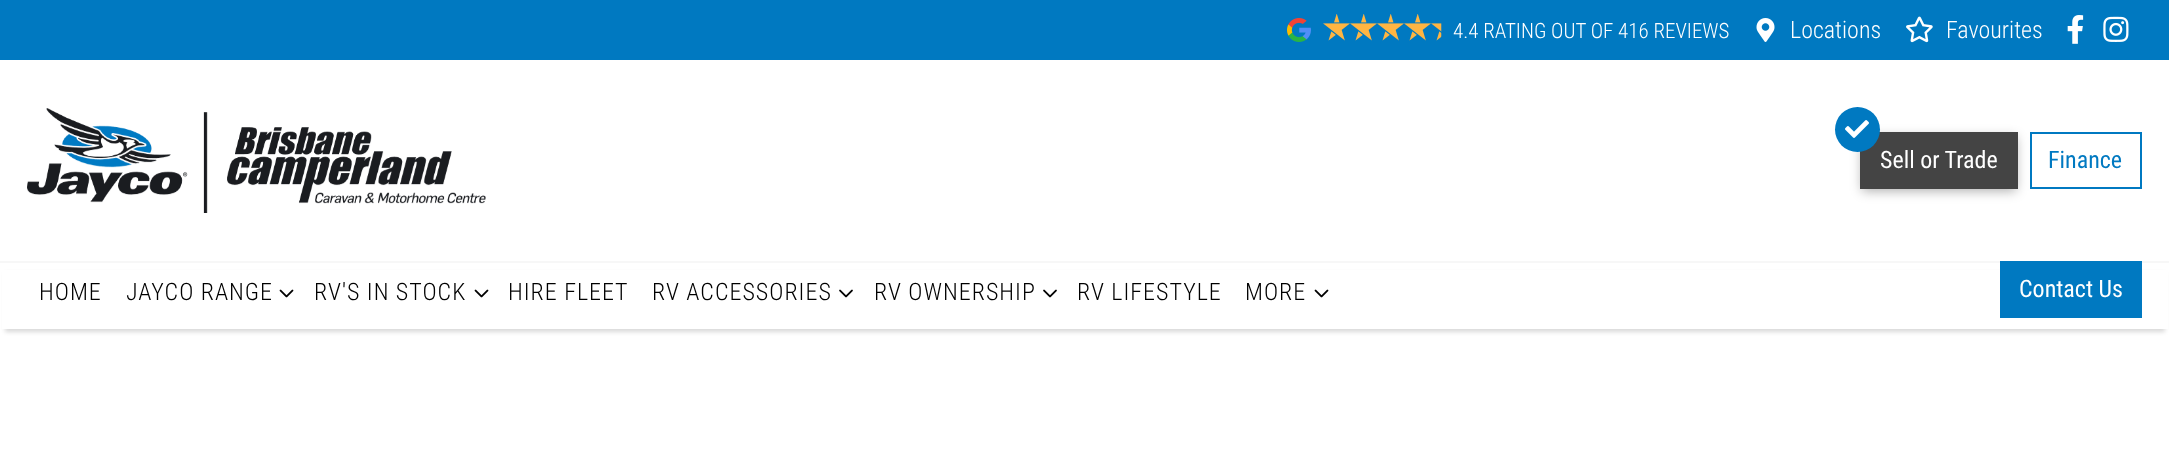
<!DOCTYPE html>
<meta charset="utf-8">
<style>body { margin: 0 } canvas { display: block }</style>
<canvas id="canvas" width="2169" height="461"></canvas>
<img id="img1" src="images/1.png" hidden>
<img id="img2" src="images/2.png" hidden>
<img id="img3" src="images/3.png" hidden>
<img id="img4" src="images/4.png" hidden>
<img id="img5" src="images/5.png" hidden>
<img id="img6" src="images/6.png" hidden>
<img id="img7" src="images/7.png" hidden>
<img id="img8" src="images/8.png" hidden>
<img id="img9" src="images/9.png" hidden>
<img id="img10" src="images/10.png" hidden>
<img id="img11" src="images/11.png" hidden>
<script>
window.onload = function () {
    const canvas = document.getElementById('canvas');
    const context = canvas.getContext('2d');
    context.miterLimit = 4;
    context.fontKerning = 'normal';

    context.fillStyle = 'rgb(255, 255, 255)';
    context.fillRect(0, 0, 2169, 461);
    context.fillStyle = 'rgb(0, 121, 193)';
    context.fillRect(0, 0, 2169, 60);
    context.drawImage(document.getElementById('img1'), 1287, 18, 24, 24);
    context.drawImage(document.getElementById('img2'), 1323, 14, 27, 27);
    context.drawImage(document.getElementById('img2'), 1350, 14, 27, 27);
    context.drawImage(document.getElementById('img2'), 1377, 14, 27, 27);
    context.drawImage(document.getElementById('img2'), 1404, 14, 27, 27);
    context.drawImage(document.getElementById('img3'), 1431, 23, 11, 18);
    context.drawImage(document.getElementById('img4'), 1756, 18, 19, 24);
    context.drawImage(document.getElementById('img5'), 1906, 16, 27, 27);
    context.drawImage(document.getElementById('img6'), 2067, 15, 17, 29);
    context.drawImage(document.getElementById('img7'), 2103, 16, 26, 26);
    context.drawImage(document.getElementById('img8'), 27, 108, 459, 105);
    context.strokeStyle = 'rgb(0, 121, 193)';
    context.lineWidth = 2;
    context.strokeRect(2031, 133, 110, 55);
    context.fillStyle = 'rgba(0, 0, 0, 0.32)';
    context.filter = 'blur(6px)';
    context.beginPath();
    context.rect(1862, 137, 154, 54);
    context.fill();
    context.filter = 'none';
    context.fillStyle = 'rgb(68, 68, 68)';
    context.fillRect(1860, 132, 158, 57);
    context.fillStyle = 'rgb(0, 121, 193)';
    context.beginPath();
    context.arc(1857.5, 129.5, 22.5, 0, 2 * Math.PI);
    context.fill();
    context.drawImage(document.getElementById('img9'), 1845, 120, 24, 18);
    context.fillStyle = 'rgba(0, 0, 0, 0.15)';
    context.filter = 'blur(2px)';
    context.beginPath();
    context.rect(5, 273, 2160, 59);
    context.fill();
    context.filter = 'none';
    context.fillStyle = 'rgb(255, 255, 255)';
    context.fillRect(2, 270, 2166, 59);
    context.fillStyle = 'rgb(247, 247, 247)';
    context.fillRect(0, 261, 2169, 2);
    context.drawImage(document.getElementById('img10'), 279, 289, 15, 9);
    context.drawImage(document.getElementById('img10'), 474, 289, 15, 9);
    context.drawImage(document.getElementById('img11'), 839, 289, 14, 9);
    context.drawImage(document.getElementById('img11'), 1043, 289, 14, 9);
    context.drawImage(document.getElementById('img10'), 1314, 289, 15, 9);
    context.fillStyle = 'rgb(0, 121, 193)';
    context.fillRect(2000, 261, 142, 57);
    context.font = '300 21px Roboto Condensed';
    context.fillStyle = 'rgb(255, 255, 255)';
    context.fillText('4.4 RATING OUT OF 416 REVIEWS', 1453, 38);
    context.font = '300 24px Roboto Condensed';
    context.fillText('Locations', 1790, 38);
    context.fillText('Favourites', 1946, 38);
    context.font = '24px Roboto Condensed';
    context.fillText('Sell or Trade', 1880, 168);
    context.fillStyle = 'rgb(0, 121, 193)';
    context.fillText('Finance', 2048, 168);
    context.letterSpacing = '1px';
    context.font = '300 24px Roboto Condensed';
    context.fillStyle = 'rgb(0, 0, 0)';
    context.fillText('HOME', 39, 300);
    context.fillText('JAYCO RANGE', 126, 300);
    context.fillText('RV\'S IN STOCK', 314, 300);
    context.fillText('HIRE FLEET', 508, 300);
    context.fillText('RV ACCESSORIES', 652, 300);
    context.fillText('RV OWNERSHIP', 874, 300);
    context.fillText('RV LIFESTYLE', 1077, 300);
    context.fillText('MORE', 1245, 300);
    context.letterSpacing = '0px';
    context.font = '24px Roboto Condensed';
    context.fillStyle = 'rgb(255, 255, 255)';
    context.fillText('Contact Us', 2019, 297);
};
</script>
